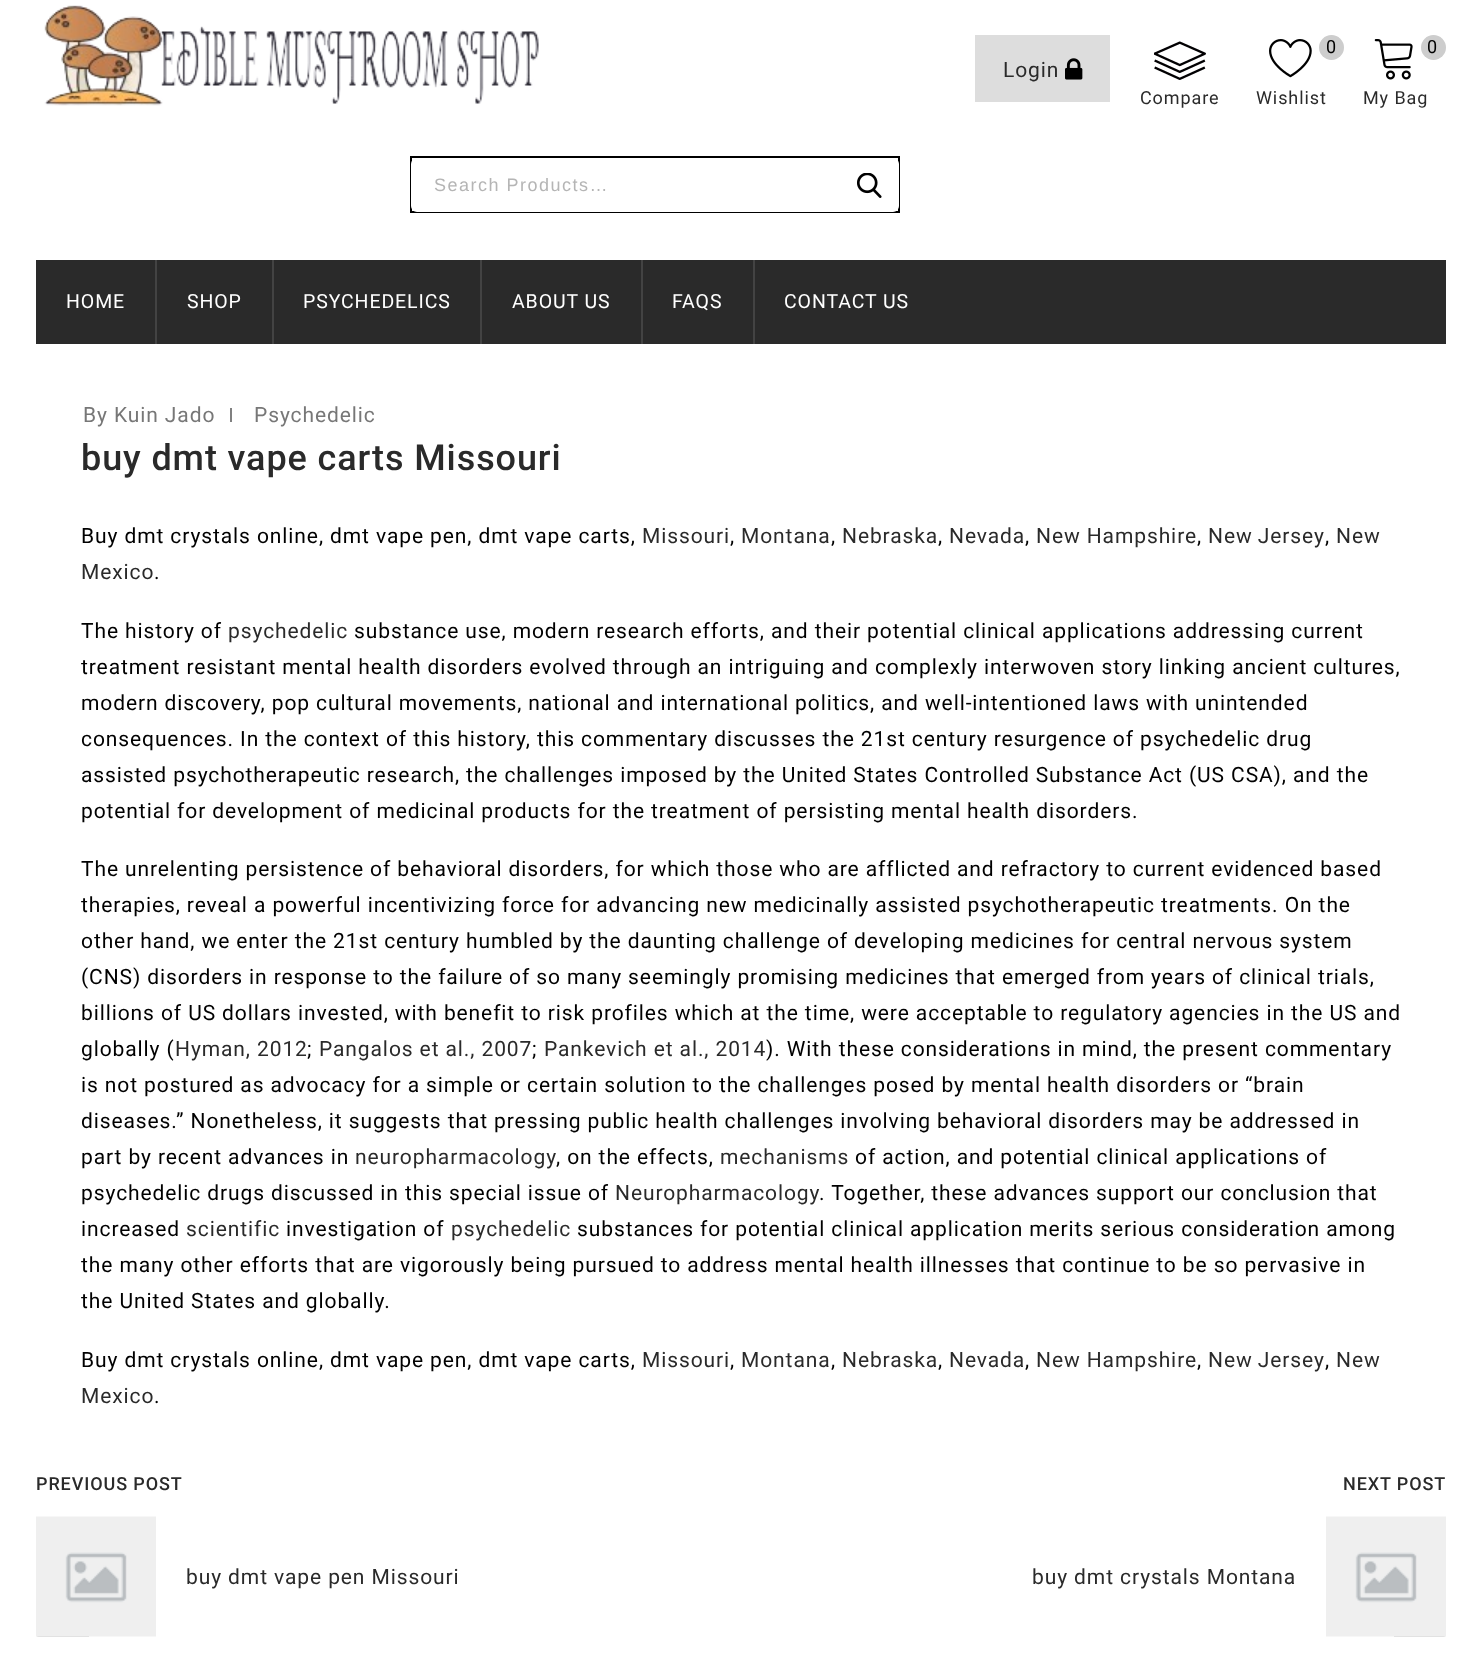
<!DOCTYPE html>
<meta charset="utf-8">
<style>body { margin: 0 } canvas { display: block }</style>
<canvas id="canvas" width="1481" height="1680"></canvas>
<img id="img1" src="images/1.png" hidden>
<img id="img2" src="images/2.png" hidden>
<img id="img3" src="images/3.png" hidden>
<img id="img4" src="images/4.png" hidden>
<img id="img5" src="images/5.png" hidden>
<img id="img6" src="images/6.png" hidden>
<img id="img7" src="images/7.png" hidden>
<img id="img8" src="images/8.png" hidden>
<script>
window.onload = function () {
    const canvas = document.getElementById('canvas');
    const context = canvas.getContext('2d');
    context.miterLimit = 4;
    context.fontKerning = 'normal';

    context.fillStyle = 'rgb(255, 255, 255)';
    context.fillRect(0, 0, 1481, 1680);
    context.drawImage(document.getElementById('img1'), 44, 5, 495, 101);
    context.fillStyle = 'rgb(221, 221, 221)';
    context.fillRect(975, 35, 135, 67);
    context.drawImage(document.getElementById('img2'), 1065, 58, 18, 22);
    context.drawImage(document.getElementById('img3'), 1154, 41, 52, 39);
    context.fillStyle = 'rgb(205, 205, 205)';
    context.beginPath();
    context.arc(1331.5, 47.5, 12.5, 0, 2 * Math.PI);
    context.fill();
    context.drawImage(document.getElementById('img4'), 1269, 39, 43, 39);
    context.beginPath();
    context.arc(1433.5, 47.5, 12.5, 0, 2 * Math.PI);
    context.fill();
    context.drawImage(document.getElementById('img5'), 1374, 39, 39, 41);
    context.strokeStyle = 'rgb(0, 0, 0)';
    context.lineWidth = 2;
    context.strokeRect(411, 157, 488, 55);
    context.fillStyle = 'rgb(255, 255, 255)';
    context.beginPath();
    context.roundRect(411, 158, 488, 54, 6);
    context.fill();
    context.drawImage(document.getElementById('img6'), 857, 173, 25, 25);
    context.fillStyle = 'rgb(42, 42, 42)';
    context.fillRect(36, 260, 1410, 84);
    context.fillStyle = 'rgb(67, 67, 67)';
    context.fillRect(155, 260, 2, 84);
    context.fillRect(272, 260, 2, 84);
    context.fillRect(480, 260, 2, 84);
    context.fillRect(641, 260, 2, 84);
    context.fillRect(753, 260, 2, 84);
    context.fillStyle = 'rgb(128, 128, 128)';
    context.fillRect(230, 408, 2, 14);
    context.fillStyle = 'rgb(212, 212, 212)';
    context.beginPath();
    context.roundRect(36, 1517, 53, 120, [3, 0, 0, 3]);
    context.fill();
    context.drawImage(document.getElementById('img7'), 36, 1516, 120, 121);
    context.beginPath();
    context.roundRect(1394, 1517, 52, 120, [0, 3, 3, 0]);
    context.fill();
    context.drawImage(document.getElementById('img8'), 1326, 1516, 120, 121);
    context.letterSpacing = '0.9px';
    context.font = '21px Roboto';
    context.fillStyle = 'rgb(42, 42, 42)';
    context.fillText('Login', 1003, 77);
    context.font = '18px Roboto';
    context.fillText('Compare', 1140, 104);
    context.fillStyle = 'rgb(0, 0, 0)';
    context.fillText('0', 1326, 53);
    context.fillStyle = 'rgb(42, 42, 42)';
    context.fillText('Wishlist', 1256, 104);
    context.fillStyle = 'rgb(0, 0, 0)';
    context.fillText('0', 1427, 53);
    context.fillStyle = 'rgb(42, 42, 42)';
    context.fillText('My Bag', 1363, 104);
    context.letterSpacing = '1.5px';
    context.font = '18px Liberation Sans';
    context.fillStyle = 'rgb(181, 181, 181)';
    context.fillText('Search Products…', 434, 191);
    context.letterSpacing = '0.9px';
    context.font = '19.5px Roboto';
    context.fillStyle = 'rgb(255, 255, 255)';
    context.fillText('HOME', 66, 308);
    context.fillText('SHOP', 187, 308);
    context.fillText('PSYCHEDELICS', 303, 308);
    context.fillText('ABOUT US', 512, 308);
    context.fillText('FAQS', 672, 308);
    context.fillText('CONTACT US', 784, 308);
    context.font = '21px Roboto';
    context.fillStyle = 'rgb(119, 119, 119)';
    context.fillText('By Kuin Jado', 83, 422);
    context.fillText('Psychedelic', 254, 422);
    context.font = '500 36px Roboto';
    context.fillStyle = 'rgb(42, 42, 42)';
    context.fillText('buy dmt vape carts Missouri', 81, 470);
    context.font = '21px Roboto';
    context.fillStyle = 'rgb(0, 0, 0)';
    context.fillText('Buy dmt crystals online, dmt vape pen, dmt vape carts,', 81, 543);
    context.fillStyle = 'rgb(42, 42, 42)';
    context.fillText('Missouri', 642, 543);
    context.fillStyle = 'rgb(0, 0, 0)';
    context.fillText(',', 730, 543);
    context.fillStyle = 'rgb(42, 42, 42)';
    context.fillText('Montana', 741, 543);
    context.fillStyle = 'rgb(0, 0, 0)';
    context.fillText(',', 831, 543);
    context.fillStyle = 'rgb(42, 42, 42)';
    context.fillText('Nebraska', 842, 543);
    context.fillStyle = 'rgb(0, 0, 0)';
    context.fillText(',', 938, 543);
    context.fillStyle = 'rgb(42, 42, 42)';
    context.fillText('Nevada', 949, 543);
    context.fillStyle = 'rgb(0, 0, 0)';
    context.fillText(',', 1025, 543);
    context.fillStyle = 'rgb(42, 42, 42)';
    context.fillText('New Hampshire', 1036, 543);
    context.fillStyle = 'rgb(0, 0, 0)';
    context.fillText(',', 1197, 543);
    context.wordSpacing = '-1px';
    context.fillStyle = 'rgb(42, 42, 42)';
    context.fillText('New Jersey', 1208, 543);
    context.wordSpacing = '0px';
    context.fillStyle = 'rgb(0, 0, 0)';
    context.fillText(',', 1325, 543);
    context.fillStyle = 'rgb(42, 42, 42)';
    context.fillText('New', 1336, 543);
    context.fillText('Mexico', 81, 579);
    context.fillStyle = 'rgb(0, 0, 0)';
    context.fillText('.', 154, 579);
    context.fillText('The history of', 81, 638);
    context.fillStyle = 'rgb(42, 42, 42)';
    context.fillText('psychedelic', 228, 638);
    context.fillStyle = 'rgb(0, 0, 0)';
    context.fillText('substance use, modern research efforts, and their potential clinical applications addressing current', 354, 638);
    context.fillText('treatment resistant mental health disorders evolved through an intriguing and complexly interwoven story linking ancient cultures,', 81, 674);
    context.fillText('modern discovery, pop cultural movements, national and international politics, and well-intentioned laws with unintended', 81, 710);
    context.fillText('consequences. In the context of this history, this commentary discusses the 21st century resurgence of psychedelic drug', 81, 746);
    context.fillText('assisted psychotherapeutic research, the challenges imposed by the United States Controlled Substance Act (US CSA), and the', 81, 782);
    context.fillText('potential for development of medicinal products for the treatment of persisting mental health disorders.', 81, 818);
    context.fillText('The unrelenting persistence of behavioral disorders, for which those who are afflicted and refractory to current evidenced based', 81, 876);
    context.fillText('therapies, reveal a powerful incentivizing force for advancing new medicinally assisted psychotherapeutic treatments. On the', 81, 912);
    context.fillText('other hand, we enter the 21st century humbled by the daunting challenge of developing medicines for central nervous system', 81, 948);
    context.fillText('(CNS) disorders in response to the failure of so many seemingly promising medicines that emerged from years of clinical trials,', 81, 984);
    context.fillText('billions of US dollars invested, with benefit to risk profiles which at the time, were acceptable to regulatory agencies in the US and', 81, 1020);
    context.fillText('globally (', 81, 1056);
    context.fillStyle = 'rgb(42, 42, 42)';
    context.fillText('Hyman, 2012', 175, 1056);
    context.fillStyle = 'rgb(0, 0, 0)';
    context.fillText(';', 307, 1056);
    context.fillStyle = 'rgb(42, 42, 42)';
    context.fillText('Pangalos et al., 2007', 319, 1056);
    context.fillStyle = 'rgb(0, 0, 0)';
    context.fillText(';', 532, 1056);
    context.fillStyle = 'rgb(42, 42, 42)';
    context.fillText('Pankevich et al., 2014', 544, 1056);
    context.fillStyle = 'rgb(0, 0, 0)';
    context.fillText('). With these considerations in mind, the present commentary', 766, 1056);
    context.fillText('is not postured as advocacy for a simple or certain solution to the challenges posed by mental health disorders or “brain', 81, 1092);
    context.fillText('diseases.” Nonetheless, it suggests that pressing public health challenges involving behavioral disorders may be addressed in', 81, 1128);
    context.fillText('part by recent advances in', 81, 1164);
    context.fillStyle = 'rgb(42, 42, 42)';
    context.fillText('neuropharmacology', 355, 1164);
    context.fillStyle = 'rgb(0, 0, 0)';
    context.fillText(', on the effects,', 556, 1164);
    context.fillStyle = 'rgb(42, 42, 42)';
    context.fillText('mechanisms', 720, 1164);
    context.fillStyle = 'rgb(0, 0, 0)';
    context.fillText('of action, and potential clinical applications of', 855, 1164);
    context.fillText('psychedelic drugs discussed in this special issue of', 81, 1200);
    context.fillStyle = 'rgb(42, 42, 42)';
    context.fillText('Neuropharmacology', 615, 1200);
    context.fillStyle = 'rgb(0, 0, 0)';
    context.fillText('. Together, these advances support our conclusion that', 819, 1200);
    context.fillText('increased', 81, 1236);
    context.fillStyle = 'rgb(42, 42, 42)';
    context.fillText('scientific', 186, 1236);
    context.fillStyle = 'rgb(0, 0, 0)';
    context.fillText('investigation of', 286, 1236);
    context.fillStyle = 'rgb(42, 42, 42)';
    context.fillText('psychedelic', 451, 1236);
    context.fillStyle = 'rgb(0, 0, 0)';
    context.fillText('substances for potential clinical application merits serious consideration among', 577, 1236);
    context.fillText('the many other efforts that are vigorously being pursued to address mental health illnesses that continue to be so pervasive in', 81, 1272);
    context.fillText('the United States and globally.', 81, 1308);
    context.fillText('Buy dmt crystals online, dmt vape pen, dmt vape carts,', 81, 1367);
    context.fillStyle = 'rgb(42, 42, 42)';
    context.fillText('Missouri', 642, 1367);
    context.fillStyle = 'rgb(0, 0, 0)';
    context.fillText(',', 730, 1367);
    context.fillStyle = 'rgb(42, 42, 42)';
    context.fillText('Montana', 741, 1367);
    context.fillStyle = 'rgb(0, 0, 0)';
    context.fillText(',', 831, 1367);
    context.fillStyle = 'rgb(42, 42, 42)';
    context.fillText('Nebraska', 842, 1367);
    context.fillStyle = 'rgb(0, 0, 0)';
    context.fillText(',', 938, 1367);
    context.fillStyle = 'rgb(42, 42, 42)';
    context.fillText('Nevada', 949, 1367);
    context.fillStyle = 'rgb(0, 0, 0)';
    context.fillText(',', 1025, 1367);
    context.fillStyle = 'rgb(42, 42, 42)';
    context.fillText('New Hampshire', 1036, 1367);
    context.fillStyle = 'rgb(0, 0, 0)';
    context.fillText(',', 1197, 1367);
    context.wordSpacing = '-1px';
    context.fillStyle = 'rgb(42, 42, 42)';
    context.fillText('New Jersey', 1208, 1367);
    context.wordSpacing = '0px';
    context.fillStyle = 'rgb(0, 0, 0)';
    context.fillText(',', 1325, 1367);
    context.fillStyle = 'rgb(42, 42, 42)';
    context.fillText('New', 1336, 1367);
    context.fillText('Mexico', 81, 1403);
    context.fillStyle = 'rgb(0, 0, 0)';
    context.fillText('.', 154, 1403);
    context.font = '500 18px Roboto';
    context.fillStyle = 'rgb(42, 42, 42)';
    context.fillText('PREVIOUS POST', 36, 1490);
    context.font = '21px Roboto';
    context.fillText('buy dmt vape pen Missouri', 186, 1584);
    context.font = '500 18px Roboto';
    context.fillText('NEXT POST', 1343, 1490);
    context.font = '21px Roboto';
    context.fillText('buy dmt crystals Montana', 1032, 1584);
};
</script>
